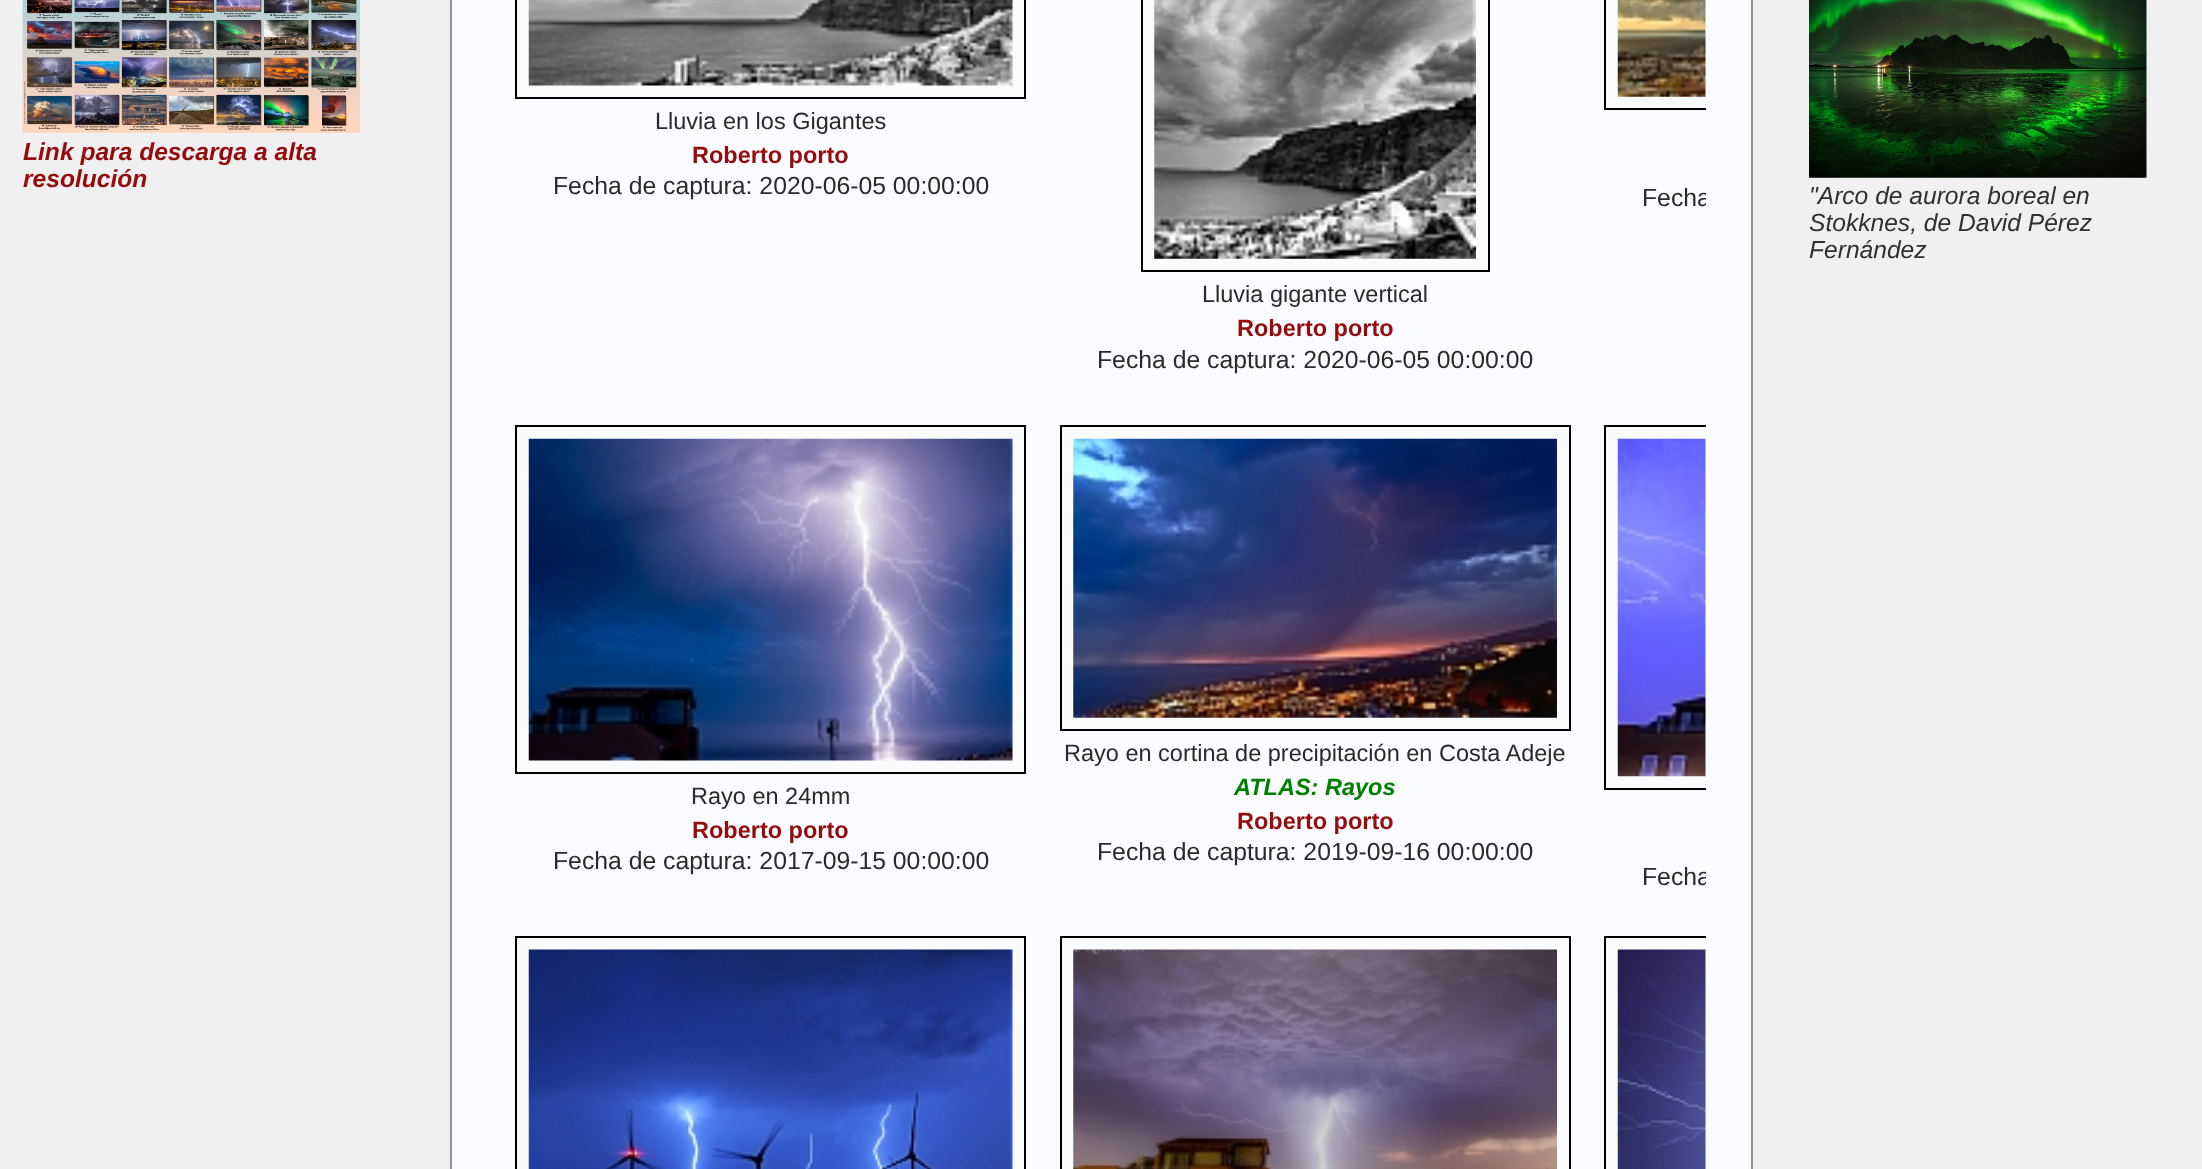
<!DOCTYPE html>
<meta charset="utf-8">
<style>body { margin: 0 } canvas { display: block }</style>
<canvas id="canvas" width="2202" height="1169"></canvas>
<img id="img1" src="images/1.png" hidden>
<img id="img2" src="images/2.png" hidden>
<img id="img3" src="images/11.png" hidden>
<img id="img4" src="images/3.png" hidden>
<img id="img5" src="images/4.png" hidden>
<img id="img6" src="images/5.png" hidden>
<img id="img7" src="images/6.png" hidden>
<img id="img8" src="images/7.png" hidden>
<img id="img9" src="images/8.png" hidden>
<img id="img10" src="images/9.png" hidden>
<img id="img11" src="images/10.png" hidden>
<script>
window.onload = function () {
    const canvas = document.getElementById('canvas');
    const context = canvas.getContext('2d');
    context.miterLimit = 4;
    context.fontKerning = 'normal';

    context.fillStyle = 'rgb(240, 240, 240)';
    context.fillRect(0, 0, 2202, 1169);
    context.drawImage(document.getElementById('img1'), 22, 0, 338, 133);
    context.fillStyle = 'rgb(250, 252, 255)';
    context.beginPath();
    context.rect(451, -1, 1301, 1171);
    context.fill();
    context.strokeStyle = 'rgb(144, 144, 144)';
    context.lineWidth = 2;
    context.stroke();
    context.fillStyle = 'rgb(250, 251, 252)';
    context.beginPath();
    context.rect(516, -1, 509, 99);
    context.fill();
    context.strokeStyle = 'rgb(0, 0, 0)';
    context.stroke();
    context.drawImage(document.getElementById('img2'), 528, 0, 485, 86);
    context.fillRect(1606, 0, 100, 108);
    context.drawImage(document.getElementById('img3'), 1809, 0, 338, 178);
    context.save();
    context.beginPath();
    context.rect(497, 0, 1209, 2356);
    context.clip();
    context.strokeRect(1605, -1, 509, 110);
    context.restore();
    context.drawImage(document.getElementById('img4'), 1617, 0, 89, 97);
    context.beginPath();
    context.rect(1142, -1, 347, 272);
    context.fill();
    context.stroke();
    context.drawImage(document.getElementById('img5'), 1154, 0, 322, 259);
    context.beginPath();
    context.rect(516, 426, 509, 347);
    context.fill();
    context.stroke();
    context.drawImage(document.getElementById('img6'), 528, 438, 485, 323);
    context.beginPath();
    context.rect(1061, 426, 509, 304);
    context.fill();
    context.stroke();
    context.drawImage(document.getElementById('img7'), 1073, 438, 484, 280);
    context.fillRect(1606, 427, 100, 361);
    context.save();
    context.beginPath();
    context.rect(497, 0, 1209, 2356);
    context.clip();
    context.strokeRect(1605, 426, 509, 363);
    context.restore();
    context.drawImage(document.getElementById('img8'), 1617, 438, 89, 339);
    context.beginPath();
    context.rect(516, 937, 509, 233);
    context.fill();
    context.stroke();
    context.drawImage(document.getElementById('img9'), 528, 949, 485, 220);
    context.beginPath();
    context.rect(1061, 937, 509, 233);
    context.fill();
    context.stroke();
    context.drawImage(document.getElementById('img10'), 1073, 949, 484, 220);
    context.fillRect(1606, 938, 100, 231);
    context.save();
    context.beginPath();
    context.rect(497, 0, 1209, 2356);
    context.clip();
    context.strokeRect(1605, 937, 509, 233);
    context.restore();
    context.drawImage(document.getElementById('img11'), 1617, 949, 89, 220);
    context.font = 'italic bold 24.6px Liberation Sans';
    context.fillStyle = 'rgb(148, 12, 14)';
    context.fillText('Link para descarga a alta', 23, 160);
    context.fillText('resolución', 23, 187);
    context.font = '23.5px Liberation Sans';
    context.fillStyle = 'rgb(42, 42, 42)';
    context.fillText('Lluvia en los Gigantes', 655, 129);
    context.font = 'bold 23.5px Liberation Sans';
    context.fillStyle = 'rgb(148, 12, 14)';
    context.fillText('Roberto porto', 692, 163);
    context.font = '24.75px Liberation Sans';
    context.fillStyle = 'rgb(42, 42, 42)';
    context.fillText('Fecha de captura: 2020-06-05 00:00:00', 553, 194);
    context.save();
    context.beginPath();
    context.rect(497, 0, 1209, 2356);
    context.clip();
    context.fillText('Fecha', 1642, 206);
    context.restore();
    context.font = '23.5px Liberation Sans';
    context.fillText('Lluvia gigante vertical', 1202, 302);
    context.font = 'bold 23.5px Liberation Sans';
    context.fillStyle = 'rgb(148, 12, 14)';
    context.fillText('Roberto porto', 1237, 336);
    context.font = '24.75px Liberation Sans';
    context.fillStyle = 'rgb(42, 42, 42)';
    context.fillText('Fecha de captura: 2020-06-05 00:00:00', 1097, 368);
    context.font = '23.5px Liberation Sans';
    context.fillText('Rayo en 24mm', 691, 804);
    context.font = 'bold 23.5px Liberation Sans';
    context.fillStyle = 'rgb(148, 12, 14)';
    context.fillText('Roberto porto', 692, 838);
    context.font = '24.75px Liberation Sans';
    context.fillStyle = 'rgb(42, 42, 42)';
    context.fillText('Fecha de captura: 2017-09-15 00:00:00', 553, 869);
    context.font = '23.5px Liberation Sans';
    context.fillText('Rayo en cortina de precipitación en Costa Adeje', 1064, 761);
    context.font = 'italic bold 23.5px Liberation Sans';
    context.fillStyle = 'rgb(0, 128, 0)';
    context.fillText('ATLAS: Rayos', 1234, 795);
    context.font = 'bold 23.5px Liberation Sans';
    context.fillStyle = 'rgb(148, 12, 14)';
    context.fillText('Roberto porto', 1237, 829);
    context.font = '24.75px Liberation Sans';
    context.fillStyle = 'rgb(42, 42, 42)';
    context.fillText('Fecha de captura: 2019-09-16 00:00:00', 1097, 860);
    context.save();
    context.beginPath();
    context.rect(497, 0, 1209, 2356);
    context.clip();
    context.fillText('Fecha', 1642, 885);
    context.restore();
    context.font = 'italic 24.6px Liberation Sans';
    context.fillStyle = 'rgb(48, 48, 48)';
    context.fillText('"Arco de aurora boreal en', 1809, 204);
    context.fillText('Stokknes, de David Pérez', 1809, 231);
    context.fillText('Fernández', 1809, 258);
};
</script>
